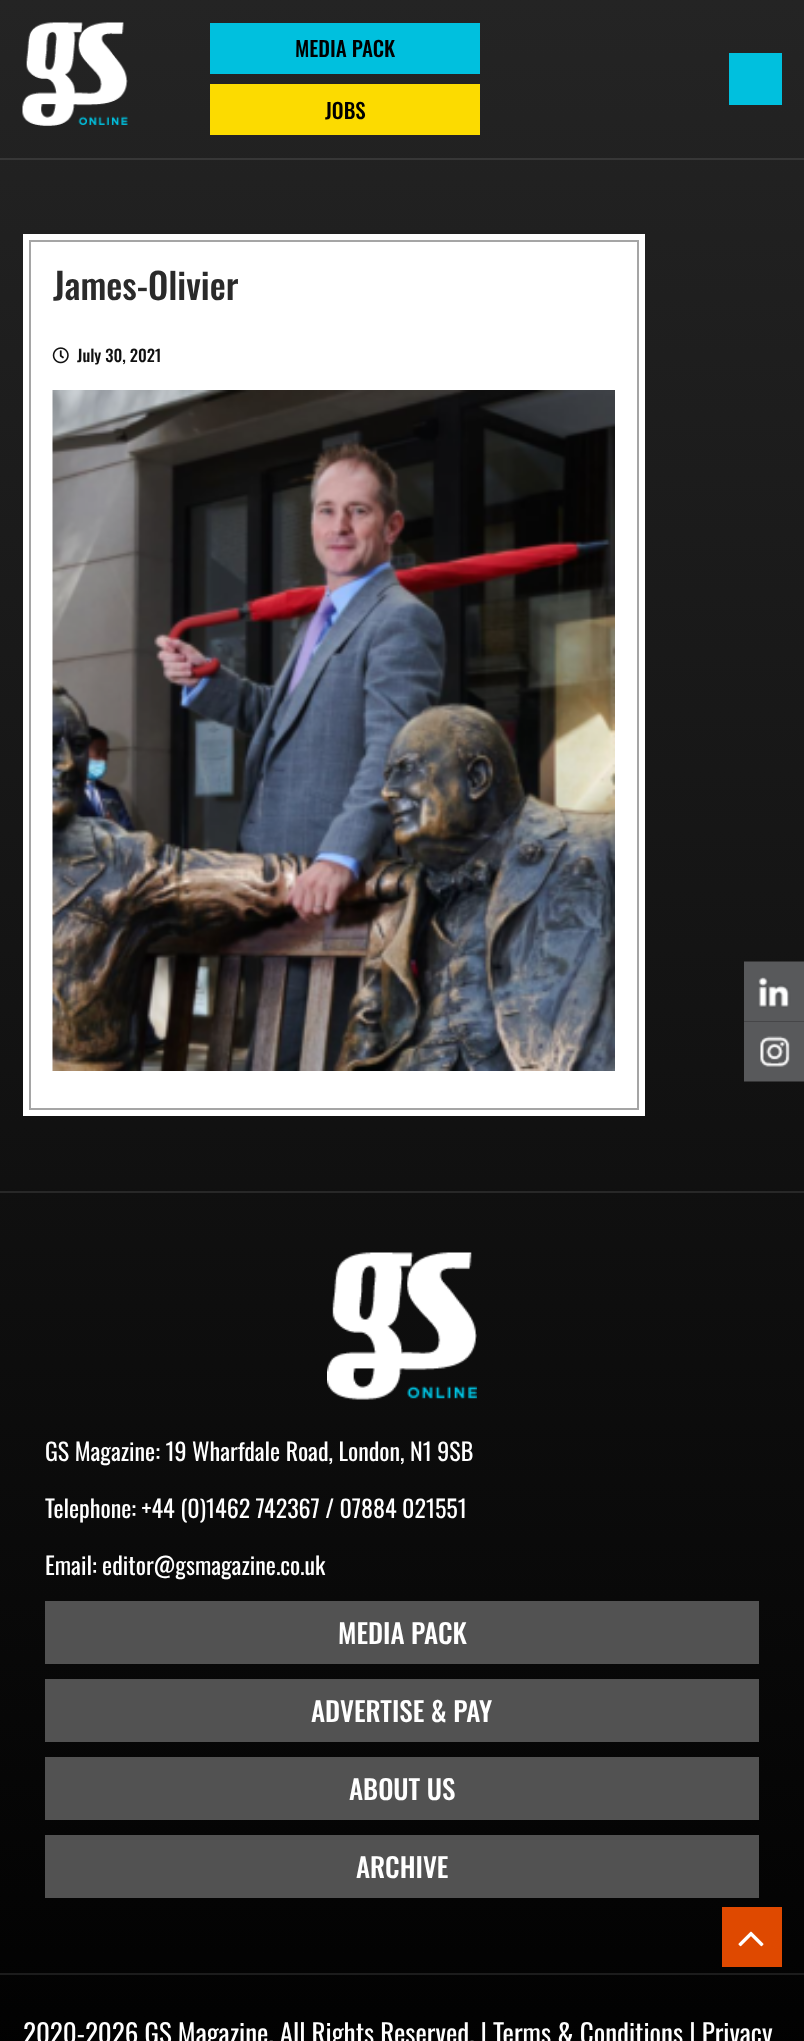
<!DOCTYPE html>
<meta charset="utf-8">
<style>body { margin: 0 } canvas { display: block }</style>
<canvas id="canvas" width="804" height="2041"></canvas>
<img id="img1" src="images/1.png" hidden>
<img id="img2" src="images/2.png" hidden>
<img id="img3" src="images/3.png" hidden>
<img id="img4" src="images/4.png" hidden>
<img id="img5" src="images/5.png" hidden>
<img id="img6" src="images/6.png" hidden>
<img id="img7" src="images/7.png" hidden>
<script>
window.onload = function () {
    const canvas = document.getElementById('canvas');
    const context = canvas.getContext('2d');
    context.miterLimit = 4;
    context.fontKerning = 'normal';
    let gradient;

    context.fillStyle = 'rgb(255, 255, 255)';
    context.fillRect(0, 0, 804, 2041);
    gradient = context.createLinearGradient(402, 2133, 402, 0);
    gradient.addColorStop(0, 'rgb(0, 0, 0)');
    gradient.addColorStop(1, 'rgb(36, 36, 36)');
    context.fillStyle = gradient;
    context.fillRect(0, 0, 804, 2041);
    context.drawImage(document.getElementById('img1'), 22, 22, 106, 104);
    context.fillStyle = 'rgb(0, 192, 222)';
    context.fillRect(210, 23, 270, 51);
    context.fillStyle = 'rgb(252, 219, 0)';
    context.fillRect(210, 84, 270, 51);
    context.fillStyle = 'rgb(55, 55, 55)';
    context.fillRect(0, 158, 804, 2);
    context.fillStyle = 'rgb(0, 192, 222)';
    context.fillRect(729, 53, 53, 52);
    context.fillStyle = 'rgb(255, 255, 255)';
    context.fillRect(23, 234, 622, 882);
    context.drawImage(document.getElementById('img2'), 52, 347, 17, 17);
    context.drawImage(document.getElementById('img3'), 52, 390, 563, 681);
    context.strokeStyle = 'rgb(165, 165, 165)';
    context.lineWidth = 2;
    context.strokeRect(30, 241, 608, 868);
    context.drawImage(document.getElementById('img4'), 744, 961, 60, 61);
    context.drawImage(document.getElementById('img5'), 744, 1021, 60, 61);
    context.fillStyle = 'rgb(40, 40, 40)';
    context.fillRect(0, 1191, 804, 2);
    context.fillStyle = 'rgb(28, 28, 28)';
    context.fillRect(0, 1973, 804, 2);
    context.drawImage(document.getElementById('img6'), 327, 1252, 150, 148);
    context.fillStyle = 'rgb(82, 82, 82)';
    context.fillRect(45, 1601, 714, 63);
    context.fillRect(45, 1679, 714, 63);
    context.fillRect(45, 1757, 714, 63);
    context.fillRect(45, 1835, 714, 63);
    context.fillStyle = 'rgb(223, 73, 0)';
    context.fillRect(722, 1907, 60, 60);
    context.drawImage(document.getElementById('img7'), 738, 1931, 26, 16);
    context.font = '500 21px Oswald';
    context.fillStyle = 'rgb(0, 0, 0)';
    context.fillText('MEDIA PACK', 295, 57);
    context.fillText('JOBS', 325, 119);
    context.font = '500 36px Oswald';
    context.fillStyle = 'rgb(42, 42, 42)';
    context.fillText('James-Olivier', 53, 300);
    context.font = '500 16.5px Oswald';
    context.fillStyle = 'rgb(17, 17, 17)';
    context.fillText('July 30, 2021', 77, 362);
    context.font = '24px Oswald';
    context.fillStyle = 'rgb(255, 255, 255)';
    context.fillText('GS Magazine: 19 Wharfdale Road, London, N1 9SB', 45, 1461);
    context.fillText('Telephone: +44 (0)1462 742367 / 07884 021551', 45, 1518);
    context.fillText('Email: editor@gsmagazine.co.uk', 45, 1575);
    context.font = '500 27px Oswald';
    context.fillText('MEDIA PACK', 338, 1644);
    context.fillText('ADVERTISE & PAY', 311, 1722);
    context.fillText('ABOUT US', 349, 1800);
    context.fillText('ARCHIVE', 356, 1878);
    context.font = '27px Oswald';
    context.fillText('2020-2026 GS Magazine. All Rights Reserved. | Terms & Conditions | Privacy', 23, 2044);
};
</script>
